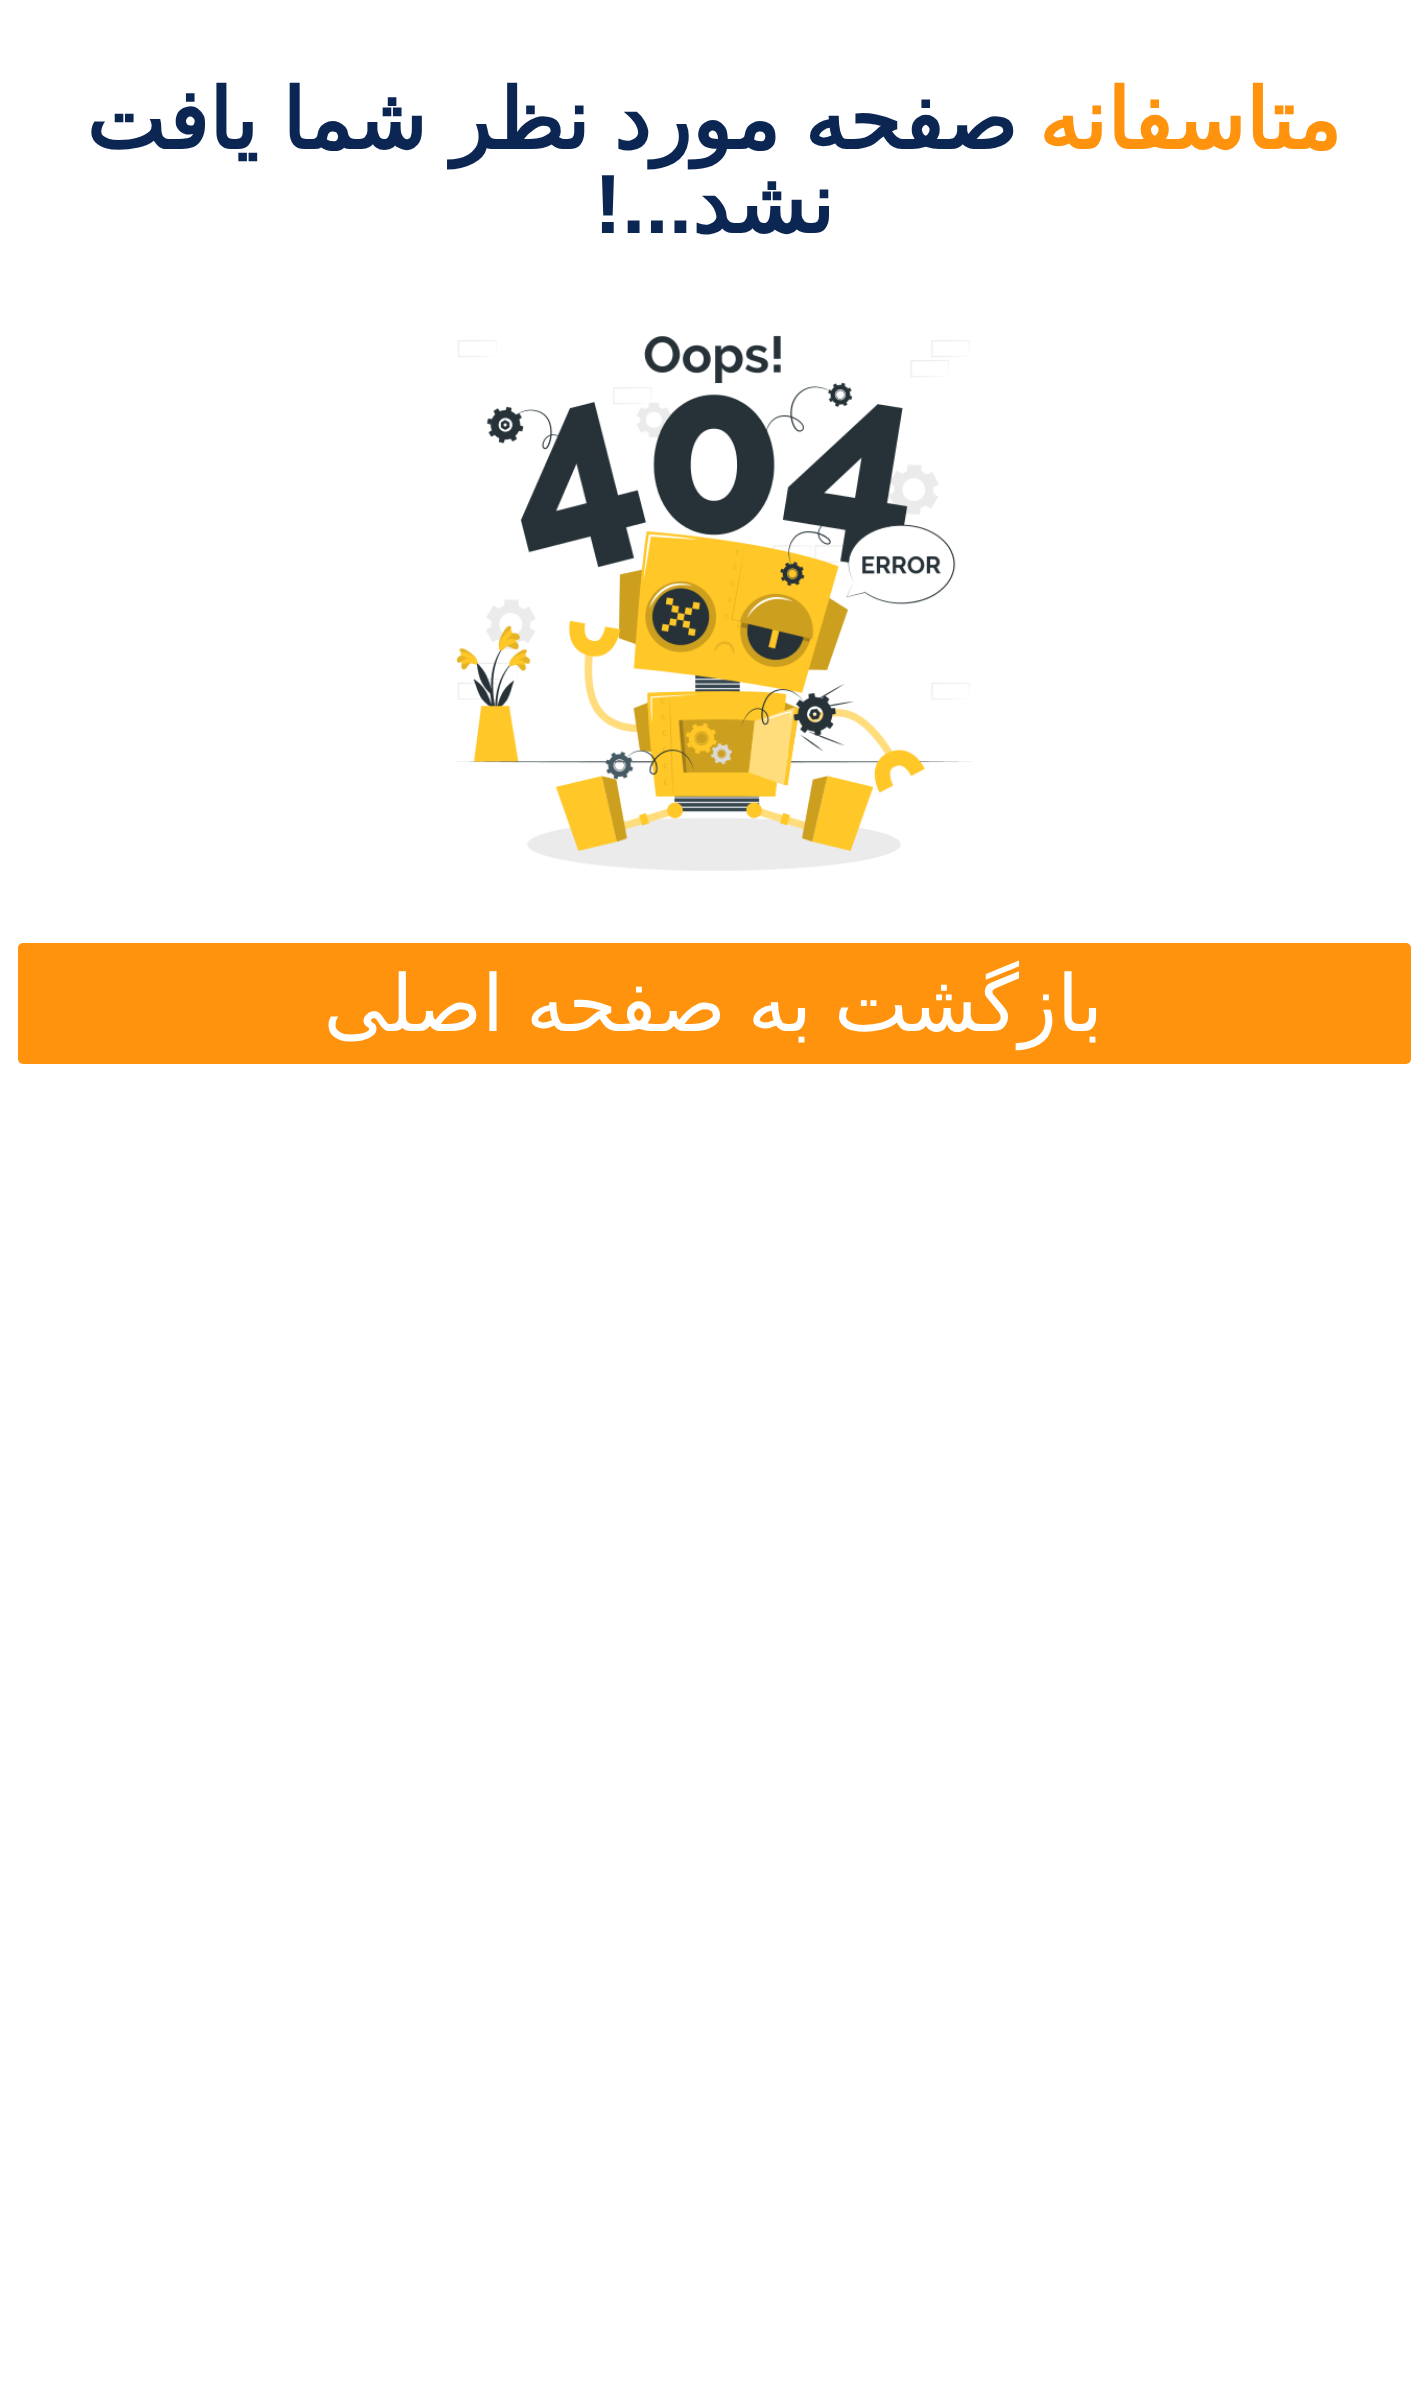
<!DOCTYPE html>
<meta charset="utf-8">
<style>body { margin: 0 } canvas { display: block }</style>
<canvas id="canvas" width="1428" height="2396"></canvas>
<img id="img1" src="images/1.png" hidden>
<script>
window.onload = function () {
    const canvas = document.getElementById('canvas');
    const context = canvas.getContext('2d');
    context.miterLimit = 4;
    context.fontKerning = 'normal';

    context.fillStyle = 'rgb(255, 255, 255)';
    context.fillRect(0, 0, 1428, 2396);
    context.drawImage(document.getElementById('img1'), 456, 335, 516, 536);
    context.fillStyle = 'rgb(255, 147, 13)';
    context.beginPath();
    context.roundRect(18, 943, 1393, 121, 5);
    context.fill();
    context.direction = 'rtl';
    context.font = 'bold 84px DejaVu Sans';
    context.fillText('متاسفانه', 1341, 149);
    context.wordSpacing = '-2.5px';
    context.fillStyle = 'rgb(11, 38, 83)';
    context.fillText('صفحه مورد نظر شما یافت', 1017, 149);
    context.wordSpacing = '0px';
    context.fillText('نشد', 834, 233);
    context.font = 'bold 84px Liberation Sans';
    context.fillText('...!', 692, 233);
    context.wordSpacing = '-3px';
    context.font = '78.75px DejaVu Sans';
    context.fillStyle = 'rgb(255, 255, 255)';
    context.fillText('بازگشت به صفحه اصلی', 1103, 1031);
};
</script>
